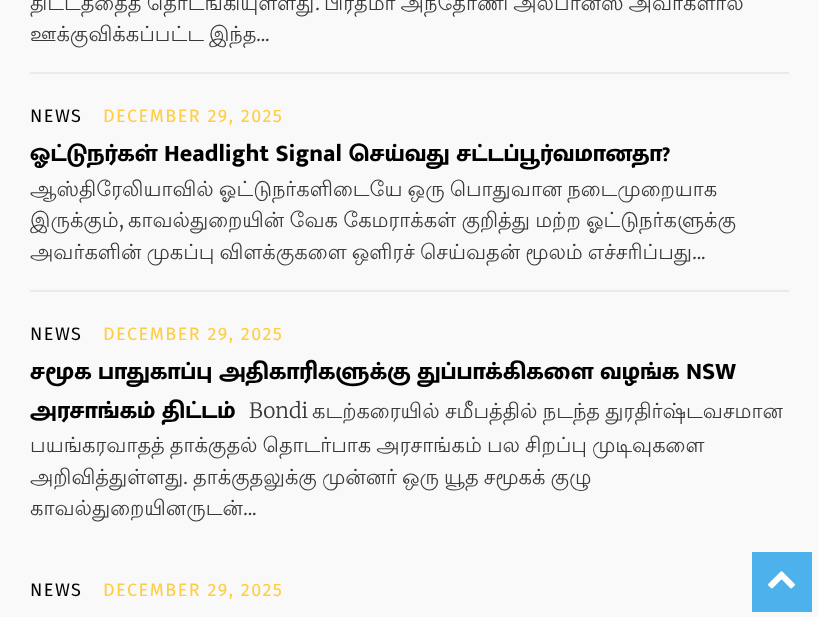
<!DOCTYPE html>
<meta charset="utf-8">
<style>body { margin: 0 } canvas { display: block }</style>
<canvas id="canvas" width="819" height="617"></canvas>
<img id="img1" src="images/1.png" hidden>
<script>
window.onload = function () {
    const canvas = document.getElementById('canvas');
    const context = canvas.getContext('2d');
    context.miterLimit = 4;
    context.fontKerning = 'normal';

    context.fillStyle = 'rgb(249, 249, 249)';
    context.fillRect(0, 0, 819, 617);
    context.fillStyle = 'rgb(234, 234, 234)';
    context.fillRect(30, 72, 759, 2);
    context.fillRect(30, 290, 759, 2);
    context.fillStyle = 'rgb(77, 178, 236)';
    context.fillRect(752, 552, 60, 60);
    context.drawImage(document.getElementById('img1'), 768, 571, 27, 18);
    context.wordSpacing = '-1px';
    context.font = '21px Lohit Tamil';
    context.fillStyle = 'rgb(56, 56, 56)';
    context.fillText('திட்டத்தைத் தொடங்கியுள்ளது', 30, 10);
    context.wordSpacing = '0px';
    context.font = '300 21px Merriweather';
    context.fillText('.', 315, 10);
    context.wordSpacing = '-1.25px';
    context.font = '21px Lohit Tamil';
    context.fillText('பிரதமர் அந்தோணி அல்பானீஸ் அவர்களால்', 324, 10);
    context.fillText('ஊக்குவிக்கப்பட்ட இந்த', 30, 41);
    context.wordSpacing = '0px';
    context.font = '300 21px Merriweather';
    context.fillText('...', 256, 41);
    context.letterSpacing = '1.5px';
    context.font = '18px Fira Sans';
    context.fillStyle = 'rgb(0, 0, 0)';
    context.fillText('NEWS', 30, 122);
    context.fillStyle = 'rgb(255, 205, 63)';
    context.fillText('DECEMBER 29, 2025', 103, 122);
    context.letterSpacing = '0px';
    context.font = '800 24px Mukta Malar';
    context.fillStyle = 'rgb(0, 0, 0)';
    context.fillText('ஓட்டுநர்கள் Headlight Signal செய்வது சட்டப்பூர்வமானதா?', 30, 161);
    context.wordSpacing = '-1.25px';
    context.font = '21px Lohit Tamil';
    context.fillStyle = 'rgb(56, 56, 56)';
    context.fillText('ஆஸ்திரேலியாவில் ஓட்டுநர்களிடையே ஒரு பொதுவான நடைமுறையாக', 30, 196);
    context.wordSpacing = '0px';
    context.fillText('இருக்கும்', 30, 227);
    context.font = '300 21px Merriweather';
    context.fillText(',', 119, 227);
    context.wordSpacing = '-1px';
    context.font = '21px Lohit Tamil';
    context.fillText('காவல்துறையின் வேக கேமராக்கள் குறித்து மற்ற ஓட்டுநர்களுக்கு', 128, 227);
    context.wordSpacing = '-1.25px';
    context.fillText('அவர்களின் முகப்பு விளக்குகளை ஒளிரச் செய்வதன் மூலம் எச்சரிப்பது', 30, 259);
    context.wordSpacing = '0px';
    context.font = '300 21px Merriweather';
    context.fillText('...', 692, 259);
    context.letterSpacing = '1.5px';
    context.font = '18px Fira Sans';
    context.fillStyle = 'rgb(0, 0, 0)';
    context.fillText('NEWS', 30, 340);
    context.fillStyle = 'rgb(255, 205, 63)';
    context.fillText('DECEMBER 29, 2025', 103, 340);
    context.letterSpacing = '0px';
    context.font = '800 24px Mukta Malar';
    context.fillStyle = 'rgb(0, 0, 0)';
    context.fillText('சமூக பாதுகாப்பு அதிகாரிகளுக்கு துப்பாக்கிகளை வழங்க NSW', 30, 379);
    context.fillText('அரசாங்கம் திட்டம்', 30, 418);
    context.font = '300 21px Merriweather';
    context.fillStyle = 'rgb(56, 56, 56)';
    context.fillText('Bondi', 249, 418);
    context.wordSpacing = '-1px';
    context.font = '21px Lohit Tamil';
    context.fillText('கடற்கரையில் சமீபத்தில் நடந்த துரதிர்ஷ்டவசமான', 312, 418);
    context.wordSpacing = '-1.25px';
    context.fillText('பயங்கரவாதத் தாக்குதல் தொடர்பாக அரசாங்கம் பல சிறப்பு முடிவுகளை', 30, 452);
    context.wordSpacing = '0px';
    context.fillText('அறிவித்துள்ளது', 30, 484);
    context.font = '300 21px Merriweather';
    context.fillText('.', 183, 484);
    context.wordSpacing = '-1.25px';
    context.font = '21px Lohit Tamil';
    context.fillText('தாக்குதலுக்கு முன்னர் ஒரு யூத சமூகக் குழு', 193, 484);
    context.wordSpacing = '0px';
    context.fillText('காவல்துறையினருடன்', 30, 515);
    context.font = '300 21px Merriweather';
    context.fillText('...', 243, 515);
    context.letterSpacing = '1.5px';
    context.font = '18px Fira Sans';
    context.fillStyle = 'rgb(0, 0, 0)';
    context.fillText('NEWS', 30, 596);
    context.fillStyle = 'rgb(255, 205, 63)';
    context.fillText('DECEMBER 29, 2025', 103, 596);
};
</script>
